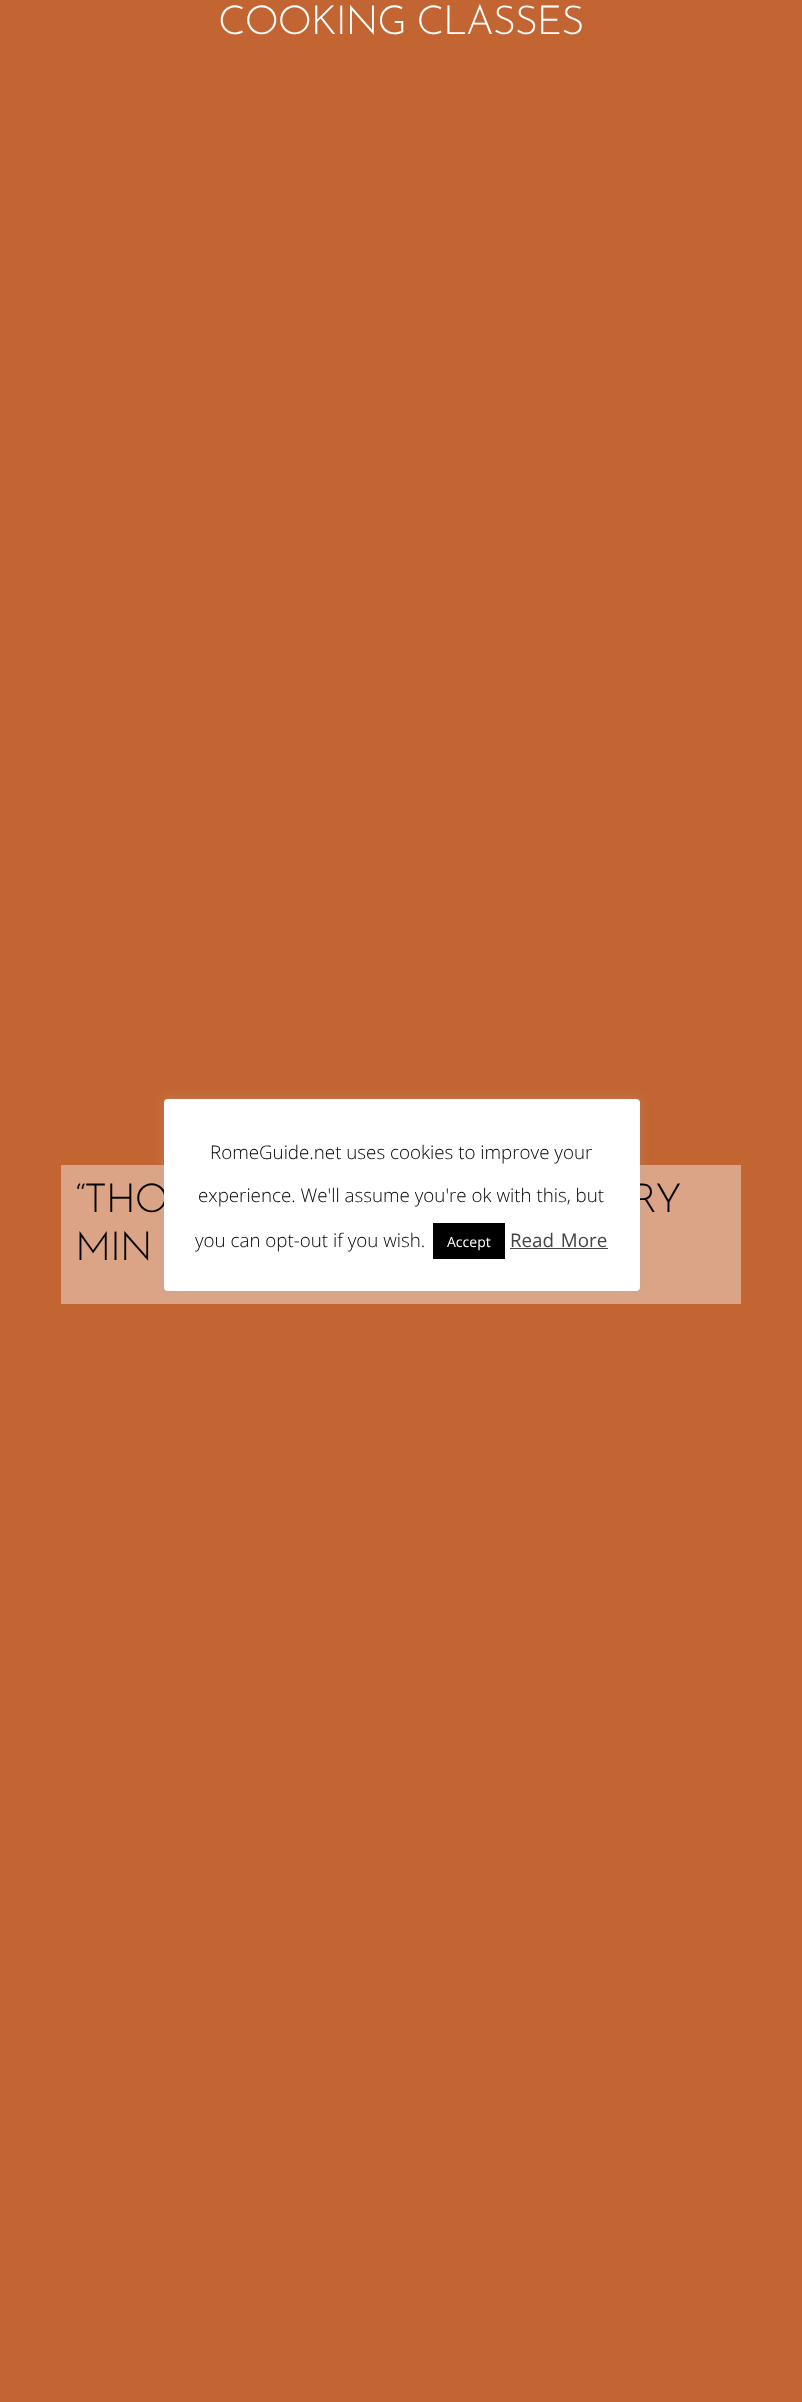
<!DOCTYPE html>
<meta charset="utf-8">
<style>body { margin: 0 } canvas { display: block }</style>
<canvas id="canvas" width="802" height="2402"></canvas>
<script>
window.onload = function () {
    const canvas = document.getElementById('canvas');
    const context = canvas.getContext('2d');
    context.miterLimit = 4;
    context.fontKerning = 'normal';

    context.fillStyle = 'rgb(195, 101, 50)';
    context.fillRect(0, 0, 802, 2402);
    context.fillStyle = 'rgb(220, 164, 134)';
    context.fillRect(61, 1165, 680, 139);
    context.fillStyle = 'rgba(172, 171, 171, 0.3)';
    context.filter = 'blur(6px)';
    context.beginPath();
    context.roundRect(164, 1098, 476, 192, 4);
    context.fill();
    context.filter = 'none';
    context.letterSpacing = '-1.25px';
    context.font = '300 40px Josefin Sans';
    context.fillStyle = 'rgb(255, 255, 255)';
    context.fillText('COOKING CLASSES', 218, 34);
    context.fillStyle = 'rgb(3, 3, 3)';
    context.fillText('“THO', 75, 1212);
    context.fillText('RY', 632, 1212);
    context.fillText('MIN', 75, 1260);
    context.fillStyle = 'rgb(255, 255, 255)';
    context.beginPath();
    context.roundRect(164, 1099, 476, 192, 4);
    context.fill();
    context.letterSpacing = '0px';
    context.font = '300 18.75px Open Sans';
    context.fillStyle = 'rgb(3, 3, 3)';
    context.fillText('RomeGuide.net uses cookies to improve your', 210, 1159);
    context.fillText('experience. We\'ll assume you\'re ok with this, but', 198, 1202);
    context.fillText('you can opt-out if you wish.', 195, 1247);
    context.fillStyle = 'rgb(0, 0, 0)';
    context.fillRect(433, 1223, 72, 36);
    context.font = '14px Open Sans';
    context.fillStyle = 'rgb(255, 255, 255)';
    context.fillText('Accept', 447, 1247);
    context.wordSpacing = '2px';
    context.font = '18.75px Open Sans';
    context.fillStyle = 'rgb(68, 68, 68)';
    context.fillText('Read More', 510, 1247);
    context.fillRect(510, 1248, 98, 1);
};
</script>
